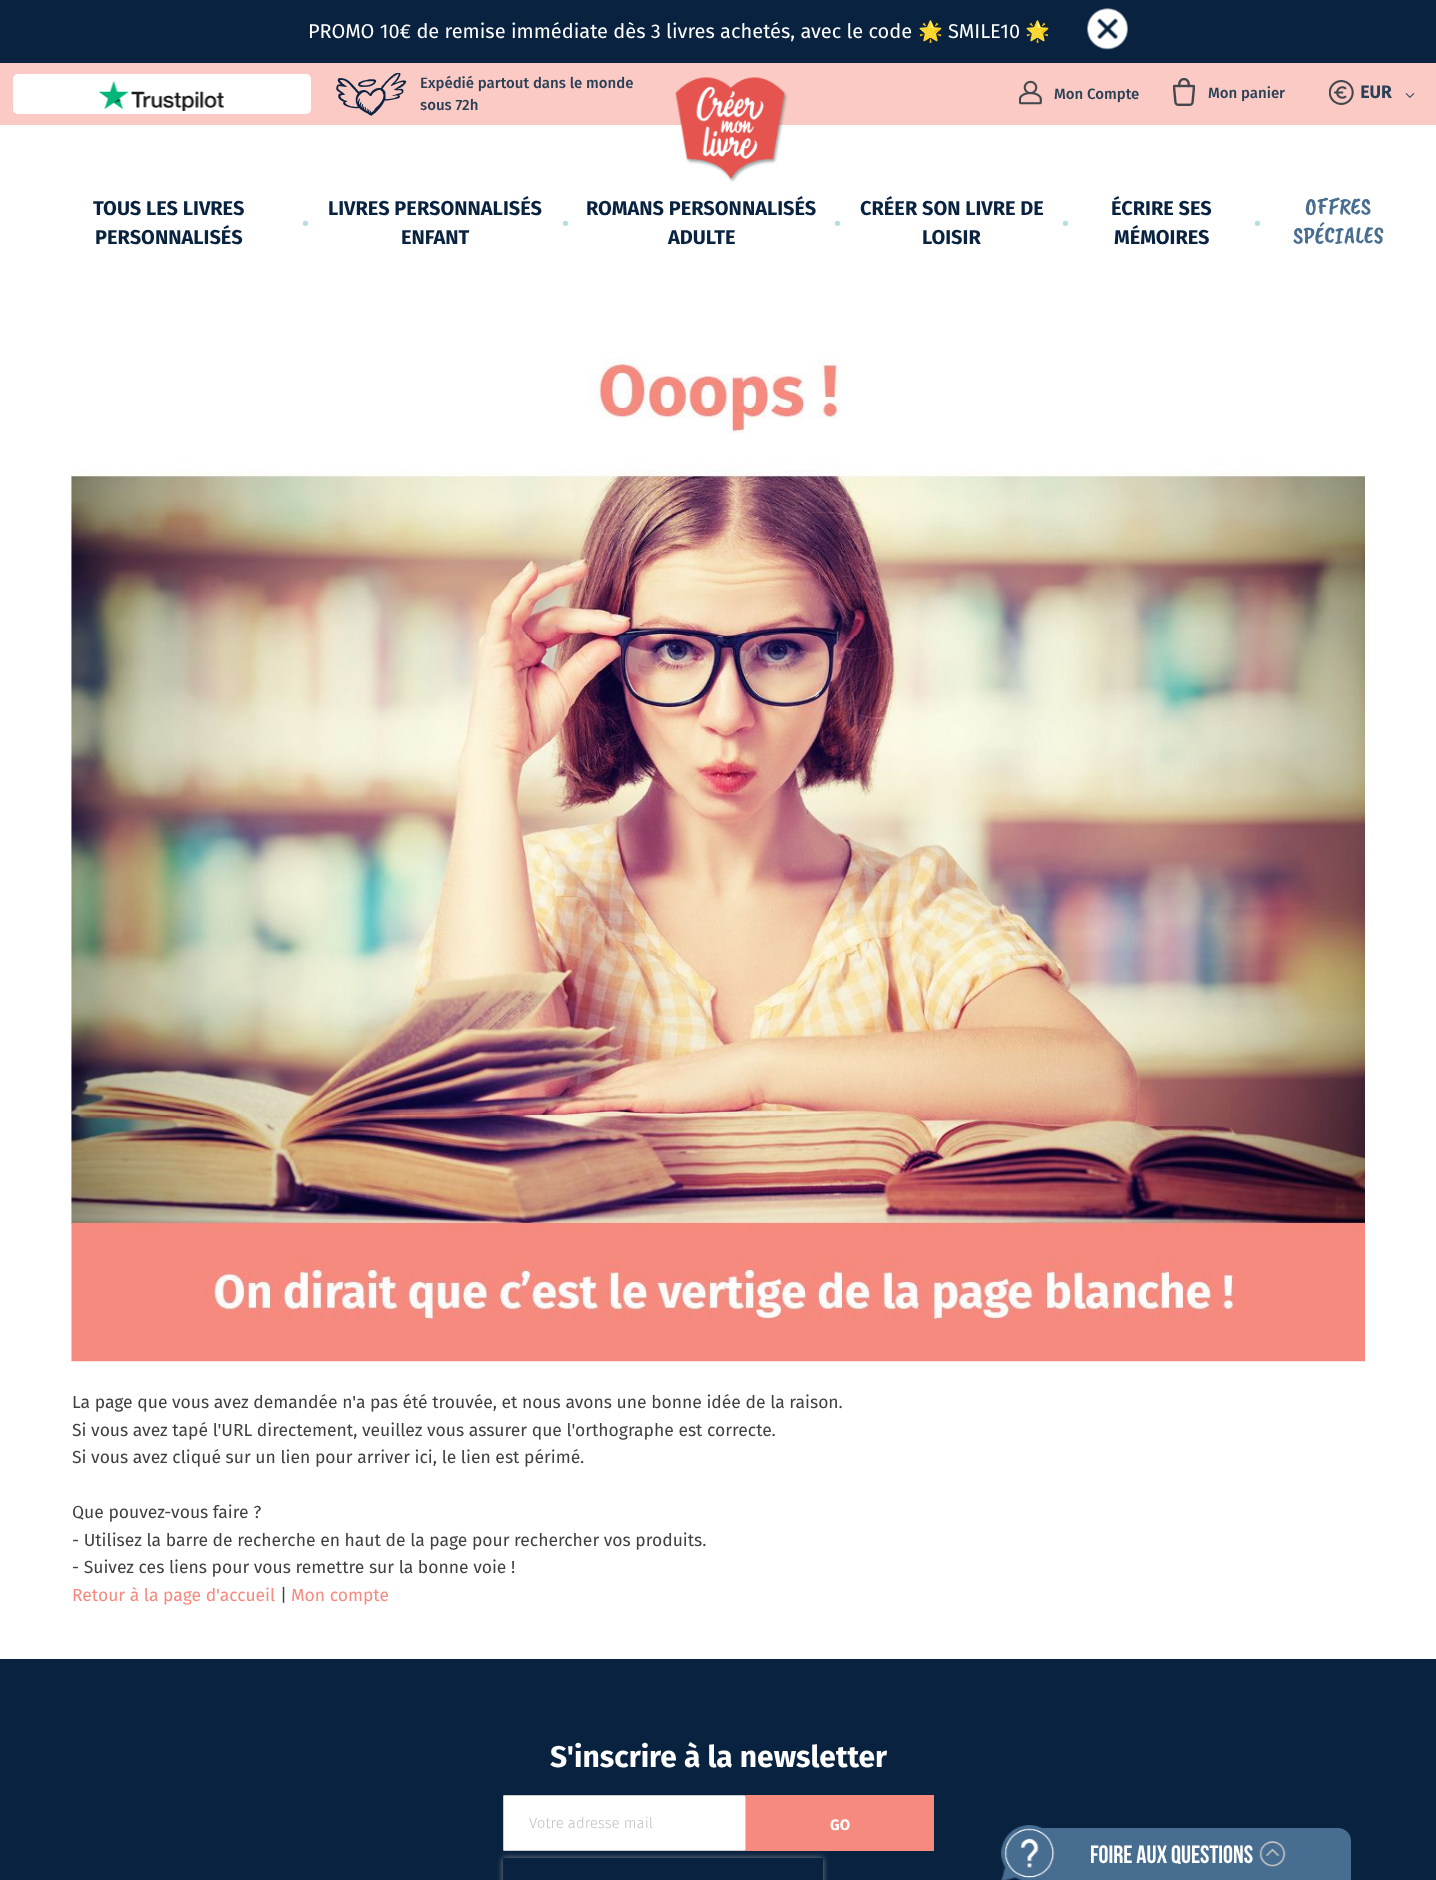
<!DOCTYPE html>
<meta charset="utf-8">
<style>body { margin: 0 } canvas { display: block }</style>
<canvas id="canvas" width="1436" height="1880"></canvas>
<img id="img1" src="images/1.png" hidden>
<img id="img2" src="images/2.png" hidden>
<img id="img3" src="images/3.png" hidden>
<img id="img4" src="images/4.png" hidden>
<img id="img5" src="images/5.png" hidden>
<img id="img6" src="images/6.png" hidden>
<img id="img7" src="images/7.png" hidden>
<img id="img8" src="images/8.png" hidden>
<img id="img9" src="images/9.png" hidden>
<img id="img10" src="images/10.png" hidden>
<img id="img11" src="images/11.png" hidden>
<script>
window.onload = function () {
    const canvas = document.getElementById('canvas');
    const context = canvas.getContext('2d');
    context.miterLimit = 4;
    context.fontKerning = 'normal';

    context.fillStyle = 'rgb(255, 255, 255)';
    context.fillRect(0, 0, 1436, 1880);
    context.fillStyle = 'rgb(9, 34, 64)';
    context.fillRect(0, 0, 1436, 63);
    context.drawImage(document.getElementById('img1'), 1087, 8, 41, 42);
    context.fillStyle = 'rgb(251, 202, 197)';
    context.fillRect(0, 63, 1436, 62);
    context.fillStyle = 'rgb(255, 255, 255)';
    context.beginPath();
    context.roundRect(13, 74, 298, 40, 5);
    context.fill();
    context.drawImage(document.getElementById('img2'), 98, 81, 126, 30);
    context.drawImage(document.getElementById('img3'), 336, 73, 71, 43);
    context.drawImage(document.getElementById('img4'), 675, 77, 113, 105);
    context.drawImage(document.getElementById('img5'), 1019, 80, 23, 25);
    context.drawImage(document.getElementById('img6'), 1173, 78, 22, 28);
    context.drawImage(document.getElementById('img7'), 1329, 80, 25, 25);
    context.drawImage(document.getElementById('img8'), 1405, 93, 10, 5);
    context.drawImage(document.getElementById('img9'), 71, 359, 1294, 1003);
    context.fillStyle = 'rgb(9, 34, 64)';
    context.fillRect(0, 1659, 1436, 221);
    context.save();
    context.beginPath();
    context.moveTo(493, 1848);
    context.lineTo(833, 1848);
    context.lineTo(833, 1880);
    context.lineTo(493, 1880);
    context.closePath();
    context.moveTo(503, 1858);
    context.lineTo(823, 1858);
    context.lineTo(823, 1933);
    context.lineTo(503, 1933);
    context.closePath();
    context.clip('evenodd');
    context.fillStyle = 'rgb(128, 128, 128)';
    context.filter = 'blur(3px)';
    context.beginPath();
    context.rect(503, 1858, 320, 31);
    context.fill();
    context.filter = 'none';
    context.restore();
    context.fillStyle = 'rgb(255, 255, 255)';
    context.beginPath();
    context.roundRect(503.5, 1795.5, 242, 55, 0.5);
    context.fill();
    context.strokeStyle = 'rgb(204, 204, 204)';
    context.stroke();
    context.fillStyle = 'rgb(246, 138, 127)';
    context.fillRect(746, 1795, 188, 56);
    context.fillStyle = 'rgb(71, 109, 145)';
    context.beginPath();
    context.roundRect(1026, 1828, 325, 52, [0, 13, 0, 0]);
    context.fill();
    context.drawImage(document.getElementById('img10'), 1001, 1825, 54, 55);
    context.drawImage(document.getElementById('img11'), 1259, 1841, 27, 26);
    context.font = '20px Fira Sans';
    context.fillStyle = 'rgb(255, 255, 255)';
    context.fillText('PROMO 10€ de remise immédiate dès 3 livres achetés, avec le code', 308, 38);
    context.font = '20px Noto Color Emoji';
    context.fillText('🌟', 918, 38);
    context.font = '20px Fira Sans';
    context.fillText('SMILE10', 948, 38);
    context.font = '20px Noto Color Emoji';
    context.fillText('🌟', 1025, 38);
    context.font = '500 15px Fira Sans';
    context.fillStyle = 'rgb(41, 64, 85)';
    context.fillText('Expédié partout dans le monde', 420, 88);
    context.fillText('sous 72h', 420, 110);
    context.fillText('Mon Compte', 1054, 99);
    context.fillText('Mon panier', 1208, 98);
    context.font = 'bold 17.5px "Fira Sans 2"';
    context.fillText('EUR', 1360, 98);
    context.font = 'bold 20px Fira Sans';
    context.fillStyle = 'rgb(9, 34, 64)';
    context.fillText('TOUS LES LIVRES', 93, 215);
    context.fillText('PERSONNALISÉS', 95, 244);
    context.font = 'bold 20px Liberation Serif';
    context.fillStyle = 'rgb(183, 221, 227)';
    context.fillText('•', 302, 230);
    context.font = 'bold 20px Fira Sans';
    context.fillStyle = 'rgb(9, 34, 64)';
    context.fillText('LIVRES PERSONNALISÉS', 328, 215);
    context.fillText('ENFANT', 401, 244);
    context.font = 'bold 20px Liberation Serif';
    context.fillStyle = 'rgb(183, 221, 227)';
    context.fillText('•', 562, 230);
    context.font = 'bold 20px Fira Sans';
    context.fillStyle = 'rgb(9, 34, 64)';
    context.fillText('ROMANS PERSONNALISÉS', 586, 215);
    context.fillText('ADULTE', 668, 244);
    context.font = 'bold 20px Liberation Serif';
    context.fillStyle = 'rgb(183, 221, 227)';
    context.fillText('•', 834, 230);
    context.font = 'bold 20px Fira Sans';
    context.fillStyle = 'rgb(9, 34, 64)';
    context.fillText('CRÉER SON LIVRE DE', 860, 215);
    context.fillText('LOISIR', 922, 244);
    context.font = 'bold 20px Liberation Serif';
    context.fillStyle = 'rgb(183, 221, 227)';
    context.fillText('•', 1062, 230);
    context.font = 'bold 20px Fira Sans';
    context.fillStyle = 'rgb(9, 34, 64)';
    context.fillText('ÉCRIRE SES', 1111, 215);
    context.fillText('MÉMOIRES', 1114, 244);
    context.font = 'bold 20px Liberation Serif';
    context.fillStyle = 'rgb(183, 221, 227)';
    context.fillText('•', 1254, 230);
    context.font = '24px Caveat Brush';
    context.fillStyle = 'rgb(71, 109, 145)';
    context.fillText('OFFRES', 1305, 214);
    context.fillText('SPÉCIALES', 1293, 243);
    context.font = '17.5px Fira Sans';
    context.fillStyle = 'rgb(64, 64, 64)';
    context.fillText('La page que vous avez demandée n\'a pas été trouvée, et nous avons une bonne idée de la raison.', 72, 1408);
    context.fillText('Si vous avez tapé l\'URL directement, veuillez vous assurer que l\'orthographe est correcte.', 72, 1436);
    context.fillText('Si vous avez cliqué sur un lien pour arriver ici, le lien est périmé.', 72, 1463);
    context.fillText('Que pouvez-vous faire ?', 72, 1518);
    context.fillText('- Utilisez la barre de recherche en haut de la page pour rechercher vos produits.', 72, 1546);
    context.fillText('- Suivez ces liens pour vous remettre sur la bonne voie !', 72, 1573);
    context.fillStyle = 'rgb(246, 138, 127)';
    context.fillText('Retour à la page d\'accueil', 72, 1601);
    context.fillStyle = 'rgb(64, 64, 64)';
    context.fillText('|', 280, 1601);
    context.fillStyle = 'rgb(246, 138, 127)';
    context.fillText('Mon compte', 291, 1601);
    context.font = 'bold 30px Fira Sans';
    context.fillStyle = 'rgb(255, 255, 255)';
    context.fillText('S\'inscrire à la newsletter', 550, 1767);
    context.font = '300 15px Fira Sans';
    context.fillStyle = 'rgb(194, 194, 194)';
    context.fillText('Votre adresse mail', 529, 1828);
    context.font = 'bold 15px Fira Sans';
    context.fillStyle = 'rgb(255, 255, 255)';
    context.fillText('GO', 830, 1830);
    context.font = '25px Bebas Neue';
    context.fillText('Foire aux questions', 1090, 1863);
};
</script>
